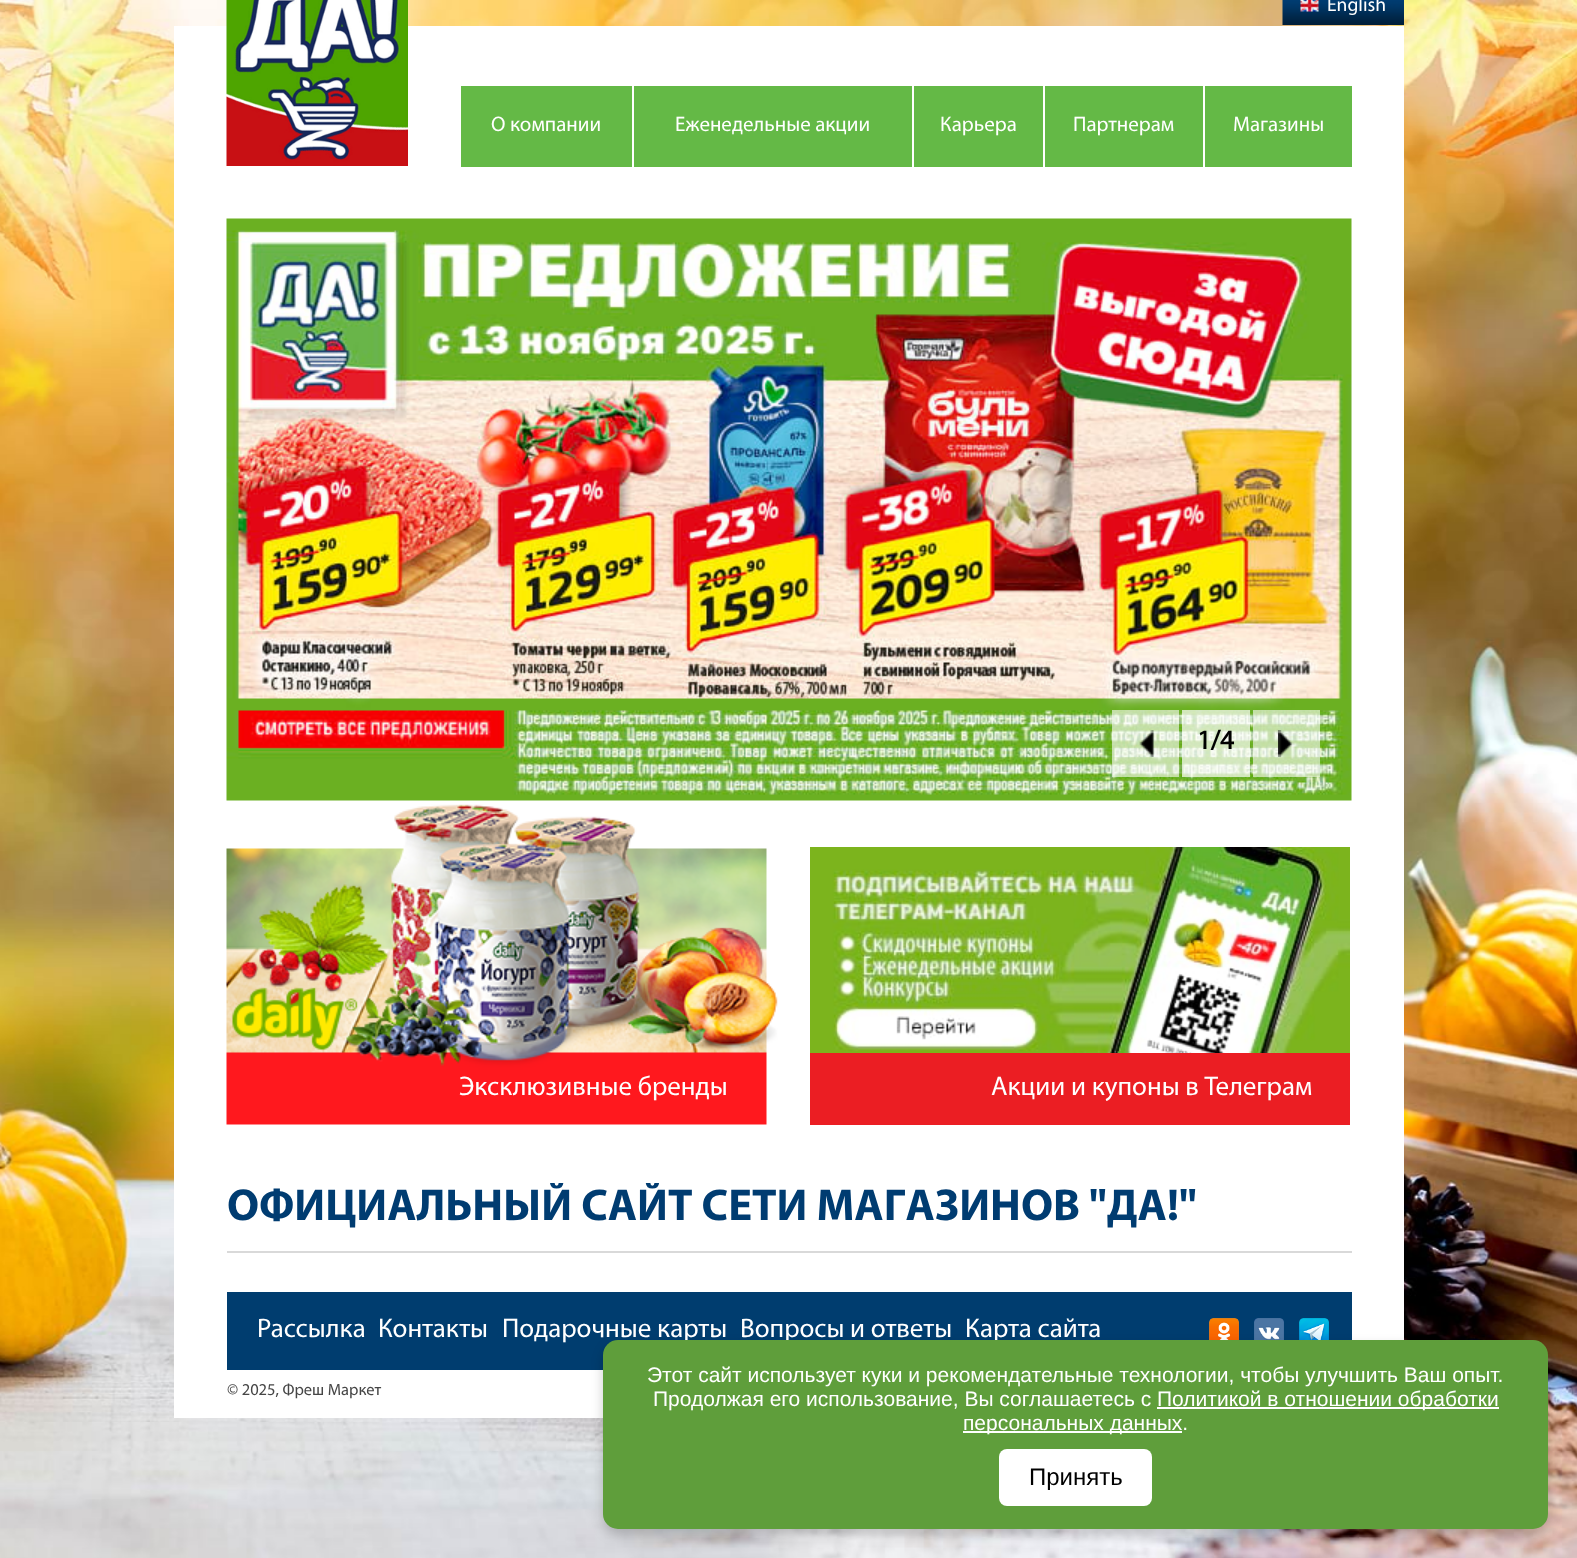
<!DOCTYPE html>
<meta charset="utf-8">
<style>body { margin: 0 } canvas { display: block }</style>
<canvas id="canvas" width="1577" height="1558"></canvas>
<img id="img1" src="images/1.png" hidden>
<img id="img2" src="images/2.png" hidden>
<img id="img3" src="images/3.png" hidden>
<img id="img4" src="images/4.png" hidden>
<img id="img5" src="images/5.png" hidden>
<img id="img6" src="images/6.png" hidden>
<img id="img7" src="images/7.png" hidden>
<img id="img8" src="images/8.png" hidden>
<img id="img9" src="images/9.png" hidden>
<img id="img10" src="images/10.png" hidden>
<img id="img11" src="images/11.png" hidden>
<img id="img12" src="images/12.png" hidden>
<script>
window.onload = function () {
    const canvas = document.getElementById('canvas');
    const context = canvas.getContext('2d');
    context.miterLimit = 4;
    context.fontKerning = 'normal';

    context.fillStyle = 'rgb(255, 255, 255)';
    context.fillRect(0, 0, 1577, 1558);
    context.drawImage(document.getElementById('img1'), 0, 0, 1577, 1558);
    context.fillRect(174, 26, 1230, 1392);
    context.drawImage(document.getElementById('img2'), 226, 0, 182, 166);
    context.drawImage(document.getElementById('img3'), 1282, 0, 122, 25);
    context.drawImage(document.getElementById('img4'), 1300, 0, 19, 12);
    context.fillStyle = 'rgb(100, 185, 70)';
    context.fillRect(461, 86, 891, 81);
    context.fillStyle = 'rgb(255, 255, 255)';
    context.fillRect(632, 86, 2, 81);
    context.fillRect(912, 86, 2, 81);
    context.fillRect(1043, 86, 2, 81);
    context.fillRect(1203, 86, 2, 81);
    context.drawImage(document.getElementById('img5'), 226, 218, 1126, 583);
    context.fillStyle = 'rgba(255, 255, 255, 0.6)';
    context.fillRect(1112, 710, 67, 67);
    context.drawImage(document.getElementById('img6'), 1139, 730, 15, 27);
    context.fillStyle = 'rgba(255, 255, 255, 0.7)';
    context.fillRect(1182, 710, 68, 67);
    context.fillStyle = 'rgba(255, 255, 255, 0.6)';
    context.fillRect(1253, 710, 67, 67);
    context.drawImage(document.getElementById('img7'), 1278, 730, 17, 27);
    context.drawImage(document.getElementById('img8'), 226, 804, 552, 321);
    context.drawImage(document.getElementById('img9'), 810, 847, 540, 206);
    context.fillStyle = 'rgb(235, 30, 35)';
    context.fillRect(810, 1053, 540, 72);
    context.fillStyle = 'rgb(217, 217, 217)';
    context.fillRect(227, 1251, 1125, 2);
    context.fillStyle = 'rgb(0, 61, 111)';
    context.fillRect(227, 1292, 1125, 78);
    context.drawImage(document.getElementById('img10'), 1209, 1318, 30, 22);
    context.drawImage(document.getElementById('img11'), 1254, 1318, 30, 22);
    context.drawImage(document.getElementById('img12'), 1299, 1318, 30, 22);
    context.fillStyle = 'rgba(0, 0, 0, 0.2)';
    context.filter = 'blur(6px)';
    context.beginPath();
    context.roundRect(603, 1346, 945, 189, 15);
    context.fill();
    context.filter = 'none';
    context.font = '19.5px Myriad';
    context.fillStyle = 'rgb(255, 255, 255)';
    context.fillText('English', 1327, 11);
    context.font = '21px Myriad';
    context.fillText('О компании', 491, 131);
    context.fillText('Еженедельные акции', 675, 131);
    context.fillText('Карьера', 940, 131);
    context.fillText('Партнерам', 1073, 131);
    context.fillText('Магазины', 1233, 131);
    context.font = 'bold 27px "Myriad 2"';
    context.fillStyle = 'rgb(0, 0, 0)';
    context.fillText('1/4', 1197, 749);
    context.font = '27px Myriad';
    context.fillStyle = 'rgb(255, 255, 255)';
    context.fillText('Эксклюзивные бренды', 459, 1095);
    context.fillText('Акции и купоны в Телеграм', 991, 1095);
    context.font = 'bold 44.75px Myriad';
    context.fillStyle = 'rgb(0, 60, 113)';
    context.fillText('ОФИЦИАЛЬНЫЙ САЙТ СЕТИ МАГАЗИНОВ "ДА!"', 227, 1220);
    context.font = '27px Myriad';
    context.fillStyle = 'rgb(255, 255, 255)';
    context.fillText('Рассылка', 257, 1337);
    context.fillText('Контакты', 378, 1337);
    context.fillText('Подарочные карты', 502, 1337);
    context.fillText('Вопросы и ответы', 740, 1337);
    context.fillText('Карта сайта', 965, 1337);
    context.font = '16.5px Myriad';
    context.fillStyle = 'rgb(70, 70, 70)';
    context.fillText('© 2025, Фреш Маркет', 227, 1395);
    context.fillStyle = 'rgb(95, 158, 59)';
    context.beginPath();
    context.roundRect(603, 1340, 945, 189, 15);
    context.fill();
    context.font = '21px Liberation Sans';
    context.fillStyle = 'rgb(255, 255, 255)';
    context.fillText('Этот сайт использует куки и рекомендательные технологии, чтобы улучшить Ваш опыт.', 647, 1382);
    context.fillText('Продолжая его использование, Вы соглашаетесь с', 653, 1406);
    context.fillRect(1157, 1407, 342, 2);
    context.fillText('Политикой в отношении обработки', 1157, 1406);
    context.fillRect(963, 1431, 219, 2);
    context.fillText('персональных данных.', 963, 1430);
    context.beginPath();
    context.roundRect(999, 1449, 153, 57, 8);
    context.fill();
    context.font = '24px Liberation Sans';
    context.fillStyle = 'rgb(0, 0, 0)';
    context.fillText('Принять', 1029, 1485);
};
</script>
